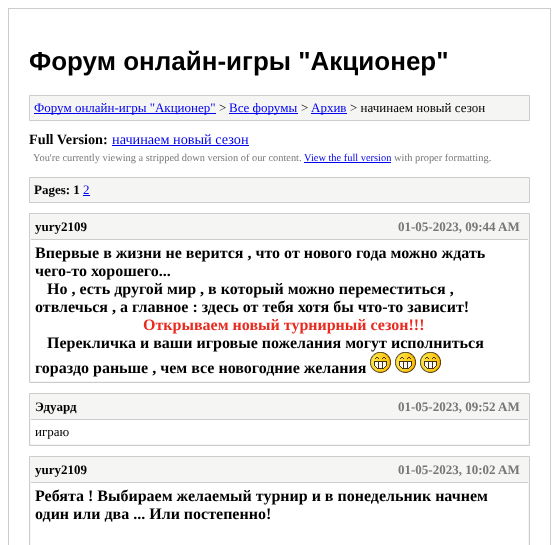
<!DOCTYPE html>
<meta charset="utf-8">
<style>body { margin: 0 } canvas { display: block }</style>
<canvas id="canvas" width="559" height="545"></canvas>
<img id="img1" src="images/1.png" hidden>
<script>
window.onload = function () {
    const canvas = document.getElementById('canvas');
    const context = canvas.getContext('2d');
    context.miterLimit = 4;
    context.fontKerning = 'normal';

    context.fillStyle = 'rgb(255, 255, 255)';
    context.fillRect(0, 0, 559, 545);
    context.strokeStyle = 'rgb(204, 204, 204)';
    context.strokeRect(8.5, 8.5, 542, 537);
    context.fillStyle = 'rgb(245, 245, 244)';
    context.beginPath();
    context.rect(29.5, 95.5, 500, 25);
    context.fill();
    context.stroke();
    context.fillStyle = 'rgb(0, 0, 238)';
    context.fillRect(34, 113, 182, 1);
    context.fillRect(229, 113, 69, 1);
    context.fillRect(311, 113, 36, 1);
    context.fillRect(112, 145, 137, 1);
    context.fillRect(304, 162, 87, 1);
    context.fillStyle = 'rgb(245, 245, 244)';
    context.beginPath();
    context.rect(29.5, 177.5, 500, 25);
    context.fill();
    context.stroke();
    context.fillStyle = 'rgb(0, 0, 238)';
    context.fillRect(83, 195, 7, 1);
    context.fillStyle = 'rgb(245, 245, 244)';
    context.beginPath();
    context.rect(29.5, 213.5, 500, 169);
    context.fill();
    context.stroke();
    context.fillStyle = 'rgb(204, 204, 204)';
    context.fillRect(31, 239, 497, 1);
    context.fillStyle = 'rgb(255, 255, 255)';
    context.fillRect(31, 240, 497, 141);
    context.drawImage(document.getElementById('img1'), 370, 352, 21, 21);
    context.drawImage(document.getElementById('img1'), 395, 352, 21, 21);
    context.drawImage(document.getElementById('img1'), 420, 352, 21, 21);
    context.fillStyle = 'rgb(245, 245, 244)';
    context.beginPath();
    context.rect(29.5, 393.5, 500, 52);
    context.fill();
    context.stroke();
    context.fillStyle = 'rgb(204, 204, 204)';
    context.fillRect(31, 419, 497, 1);
    context.fillStyle = 'rgb(255, 255, 255)';
    context.fillRect(31, 420, 497, 24);
    context.fillStyle = 'rgb(245, 245, 244)';
    context.beginPath();
    context.rect(29.5, 456.5, 500, 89);
    context.fill();
    context.stroke();
    context.fillStyle = 'rgb(204, 204, 204)';
    context.fillRect(31, 482, 497, 1);
    context.fillStyle = 'rgb(255, 255, 255)';
    context.fillRect(31, 483, 497, 62);
    context.font = 'bold 26px Liberation Sans';
    context.fillStyle = 'rgb(0, 0, 0)';
    context.fillText('Форум онлайн-игры "Акционер"', 29, 70);
    context.font = '13px Liberation Serif';
    context.fillStyle = 'rgb(0, 0, 238)';
    context.fillText('Форум онлайн-игры "Акционер"', 34, 112);
    context.fillStyle = 'rgb(0, 0, 0)';
    context.fillText('>', 219, 112);
    context.fillStyle = 'rgb(0, 0, 238)';
    context.fillText('Все форумы', 229, 112);
    context.fillStyle = 'rgb(0, 0, 0)';
    context.fillText('>', 301, 112);
    context.fillStyle = 'rgb(0, 0, 238)';
    context.fillText('Архив', 311, 112);
    context.fillStyle = 'rgb(0, 0, 0)';
    context.fillText('> начинаем новый сезон', 350, 112);
    context.font = 'bold 14.25px Liberation Serif';
    context.fillText('Full Version:', 29, 144);
    context.font = '14.25px Liberation Serif';
    context.fillStyle = 'rgb(0, 0, 238)';
    context.fillText('начинаем новый сезон', 112, 144);
    context.font = '10.4px Liberation Serif';
    context.fillStyle = 'rgb(119, 119, 119)';
    context.fillText('You\'re currently viewing a stripped down version of our content.', 33, 161);
    context.fillStyle = 'rgb(0, 0, 238)';
    context.fillText('View the full version', 304, 161);
    context.fillStyle = 'rgb(119, 119, 119)';
    context.fillText('with proper formatting.', 394, 161);
    context.font = 'bold 13px Liberation Serif';
    context.fillStyle = 'rgb(0, 0, 0)';
    context.fillText('Pages: 1', 34, 194);
    context.font = '13px Liberation Serif';
    context.fillStyle = 'rgb(0, 0, 238)';
    context.fillText('2', 83, 194);
    context.font = 'bold 13px Liberation Serif';
    context.fillStyle = 'rgb(0, 0, 0)';
    context.fillText('yury2109', 35, 231);
    context.fillStyle = 'rgb(119, 119, 119)';
    context.fillText('01-05-2023, 09:44 AM', 398, 231);
    context.font = 'bold 16px Liberation Serif';
    context.fillStyle = 'rgb(0, 0, 0)';
    context.fillText('Впервые в жизни не верится , что от нового года можно ждать', 35, 258);
    context.fillText('чего-то хорошего...', 35, 276);
    context.fillText('Но , есть другой мир , в который можно переместиться ,', 47, 294);
    context.fillText('отвлечься , а главное : здесь от тебя хотя бы что-то зависит!', 35, 312);
    context.fillStyle = 'rgb(232, 42, 31)';
    context.fillText('Открываем новый турнирный сезон!!!', 143, 330);
    context.fillStyle = 'rgb(0, 0, 0)';
    context.fillText('Перекличка и ваши игровые пожелания могут исполниться', 47, 348);
    context.fillText('гораздо раньше , чем все новогодние желания', 35, 373);
    context.font = 'bold 13px Liberation Serif';
    context.fillText('Эдуард', 35, 411);
    context.fillStyle = 'rgb(119, 119, 119)';
    context.fillText('01-05-2023, 09:52 AM', 398, 411);
    context.font = '13px Liberation Serif';
    context.fillStyle = 'rgb(0, 0, 0)';
    context.fillText('играю', 35, 436);
    context.font = 'bold 13px Liberation Serif';
    context.fillText('yury2109', 35, 474);
    context.fillStyle = 'rgb(119, 119, 119)';
    context.fillText('01-05-2023, 10:02 AM', 398, 474);
    context.font = 'bold 16px Liberation Serif';
    context.fillStyle = 'rgb(0, 0, 0)';
    context.fillText('Ребята ! Выбираем желаемый турнир и в понедельник начнем', 35, 501);
    context.fillText('один или два ... Или постепенно!', 35, 519);
};
</script>
